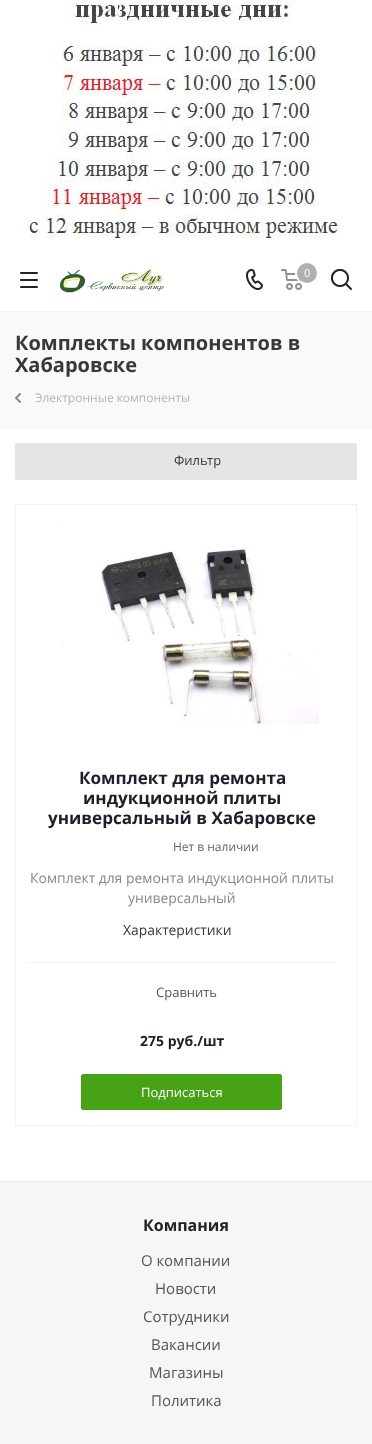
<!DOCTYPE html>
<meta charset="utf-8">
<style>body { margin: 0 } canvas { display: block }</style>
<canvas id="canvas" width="372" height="1444"></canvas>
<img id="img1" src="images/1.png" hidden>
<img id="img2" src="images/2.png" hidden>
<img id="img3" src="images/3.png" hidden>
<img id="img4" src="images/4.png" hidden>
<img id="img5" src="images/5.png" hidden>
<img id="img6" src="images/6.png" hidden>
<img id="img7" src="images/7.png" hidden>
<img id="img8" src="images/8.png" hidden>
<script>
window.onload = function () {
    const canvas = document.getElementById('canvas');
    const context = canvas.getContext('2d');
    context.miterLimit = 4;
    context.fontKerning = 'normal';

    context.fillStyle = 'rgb(255, 255, 255)';
    context.fillRect(0, 0, 372, 1444);
    context.drawImage(document.getElementById('img1'), 22, 0, 320, 239);
    context.fillStyle = 'rgb(245, 245, 245)';
    context.fillRect(0, 311, 372, 1);
    context.drawImage(document.getElementById('img2'), 20, 272, 18, 16);
    context.drawImage(document.getElementById('img3'), 58, 269, 112, 24);
    context.drawImage(document.getElementById('img4'), 246, 269, 17, 21);
    context.drawImage(document.getElementById('img5'), 281, 269, 21, 21);
    context.beginPath();
    context.arc(307, 273, 11, 0, 2 * Math.PI);
    context.strokeStyle = 'rgb(255, 255, 255)';
    context.lineWidth = 2;
    context.stroke();
    context.fillStyle = 'rgb(176, 176, 176)';
    context.beginPath();
    context.arc(307, 273, 10, 0, 2 * Math.PI);
    context.fill();
    context.drawImage(document.getElementById('img6'), 331, 269, 21, 21);
    context.fillStyle = 'rgb(249, 249, 249)';
    context.fillRect(0, 312, 372, 117);
    context.drawImage(document.getElementById('img7'), 15, 393, 6, 10);
    context.fillStyle = 'rgb(229, 229, 229)';
    context.beginPath();
    context.roundRect(15, 443, 342, 37, 2);
    context.fill();
    context.strokeStyle = 'rgb(242, 242, 242)';
    context.lineWidth = 1;
    context.strokeRect(15.5, 504.5, 341, 621);
    context.drawImage(document.getElementById('img8'), 62, 527, 257, 197);
    context.fillStyle = 'rgb(242, 242, 242)';
    context.fillRect(28, 962, 308, 1);
    context.fillStyle = 'rgb(72, 162, 22)';
    context.beginPath();
    context.roundRect(81.5, 1074.5, 200, 35, 1.5);
    context.fill();
    context.strokeStyle = 'rgb(72, 162, 22)';
    context.stroke();
    context.fillStyle = 'rgb(238, 238, 238)';
    context.fillRect(0, 1181, 372, 1);
    context.fillStyle = 'rgb(246, 246, 247)';
    context.fillRect(0, 1182, 372, 262);
    context.font = '11px Open Sans';
    context.fillStyle = 'rgb(255, 255, 255)';
    context.fillText('0', 304, 277);
    context.font = 'bold 20px Open Sans';
    context.fillStyle = 'rgb(56, 56, 56)';
    context.fillText('Комплекты компонентов в', 15, 350);
    context.fillText('Хабаровске', 15, 372);
    context.font = '12px Open Sans';
    context.fillStyle = 'rgb(182, 181, 181)';
    context.fillText('Электронные компоненты', 35, 402);
    context.font = '13px Open Sans';
    context.fillStyle = 'rgb(56, 56, 56)';
    context.fillText('Фильтр', 174, 465);
    context.font = 'bold 17.1px Open Sans';
    context.fillStyle = 'rgb(29, 32, 41)';
    context.fillText('Комплект для ремонта', 79, 784);
    context.fillText('индукционной плиты', 83, 804);
    context.save();
    context.beginPath();
    context.rect(28, 768, 308, 60);
    context.clip();
    context.fillText('универсальный в Хабаровске', 48, 824);
    context.restore();
    context.font = '12px Open Sans';
    context.fillStyle = 'rgb(102, 102, 102)';
    context.fillText('Нет в наличии', 173, 851);
    context.font = '13.9px Open Sans';
    context.fillStyle = 'rgb(136, 136, 136)';
    context.fillText('Комплект для ремонта индукционной плиты', 30, 883);
    context.fillText('универсальный', 128, 903);
    context.fillStyle = 'rgb(56, 56, 56)';
    context.fillText('Характеристики', 123, 935);
    context.font = '13px Open Sans';
    context.fillStyle = 'rgb(85, 85, 85)';
    context.fillText('Сравнить', 156, 997);
    context.font = 'bold 14px Open Sans';
    context.fillStyle = 'rgb(29, 32, 41)';
    context.fillText('275 руб./шт', 140, 1046);
    context.font = '13px Open Sans';
    context.fillStyle = 'rgb(255, 255, 255)';
    context.fillText('Подписаться', 141, 1097);
    context.font = 'bold 16px Open Sans';
    context.fillStyle = 'rgb(34, 34, 34)';
    context.fillText('Компания', 143, 1231);
    context.font = '15px Open Sans';
    context.fillStyle = 'rgb(85, 85, 85)';
    context.fillText('О компании', 141, 1266);
    context.fillText('Новости', 155, 1294);
    context.fillText('Сотрудники', 143, 1322);
    context.fillText('Вакансии', 151, 1350);
    context.fillText('Магазины', 149, 1378);
    context.fillText('Политика', 151, 1406);
};
</script>
